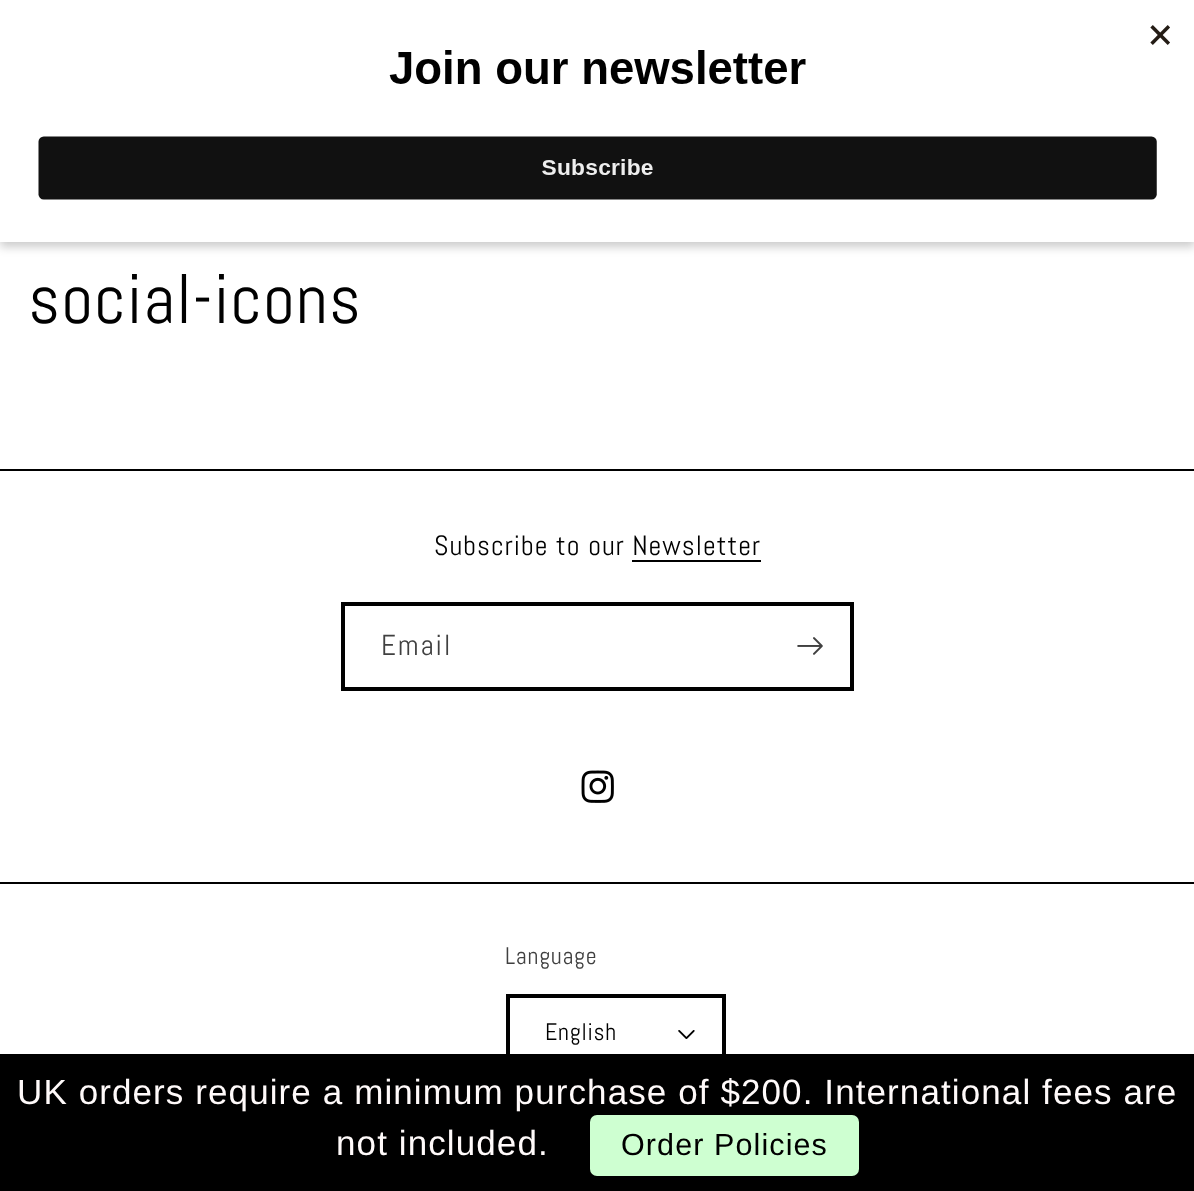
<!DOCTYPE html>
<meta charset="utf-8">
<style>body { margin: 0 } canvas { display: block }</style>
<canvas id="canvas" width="1194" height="1191"></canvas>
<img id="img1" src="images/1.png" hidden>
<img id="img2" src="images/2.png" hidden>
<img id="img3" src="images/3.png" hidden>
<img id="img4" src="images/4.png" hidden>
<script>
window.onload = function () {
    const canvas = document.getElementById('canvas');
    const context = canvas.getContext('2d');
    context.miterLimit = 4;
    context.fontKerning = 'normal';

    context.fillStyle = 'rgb(255, 255, 255)';
    context.fillRect(0, 0, 1194, 1191);
    context.fillStyle = 'rgba(0, 0, 0, 0.2)';
    context.filter = 'blur(5px)';
    context.beginPath();
    context.rect(0, 5, 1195, 242);
    context.fill();
    context.filter = 'none';
    context.fillStyle = 'rgb(255, 255, 255)';
    context.fillRect(0, 0, 1194, 242);
    context.drawImage(document.getElementById('img1'), 38, 25, 1132, 175);
    context.fillStyle = 'rgb(0, 0, 0)';
    context.fillRect(0, 469, 1194, 2);
    context.fillRect(632, 560, 129, 2);
    context.strokeStyle = 'rgb(0, 0, 0)';
    context.lineWidth = 4;
    context.strokeRect(343, 604, 509, 85);
    context.drawImage(document.getElementById('img2'), 797, 637, 26, 18);
    context.drawImage(document.getElementById('img3'), 581, 770, 33, 33);
    context.fillRect(0, 882, 1194, 2);
    context.drawImage(document.getElementById('img4'), 678, 1030, 17, 9);
    context.strokeRect(508, 996, 216, 77);
    context.fillRect(0, 1054, 1194, 137);
    context.fillStyle = 'rgb(206, 255, 209)';
    context.beginPath();
    context.roundRect(590, 1115, 269, 61, 7);
    context.fill();
    context.letterSpacing = '1.05px';
    context.font = '70px Abel';
    context.fillStyle = 'rgb(0, 0, 0)';
    context.fillText('social-icons', 28, 323);
    context.font = '28px Abel';
    context.fillText('Subscribe to our Newsletter', 434, 555);
    context.letterSpacing = '2px';
    context.font = '29px Abel';
    context.fillStyle = 'rgb(64, 64, 64)';
    context.fillText('Email', 381, 655);
    context.letterSpacing = '0.75px';
    context.font = '24px Abel';
    context.fillText('Language', 505, 964);
    context.fillStyle = 'rgb(0, 0, 0)';
    context.fillText('English', 545, 1040);
    context.letterSpacing = '1.1px';
    context.font = '35px Liberation Sans';
    context.fillStyle = 'rgb(255, 250, 250)';
    context.fillText('UK orders require a minimum purchase of $200. International fees are', 17, 1104);
    context.fillText('not included.', 336, 1155);
    context.font = '30.5px Liberation Sans';
    context.fillStyle = 'rgb(0, 0, 0)';
    context.fillText('Order Policies', 621, 1155);
};
</script>
